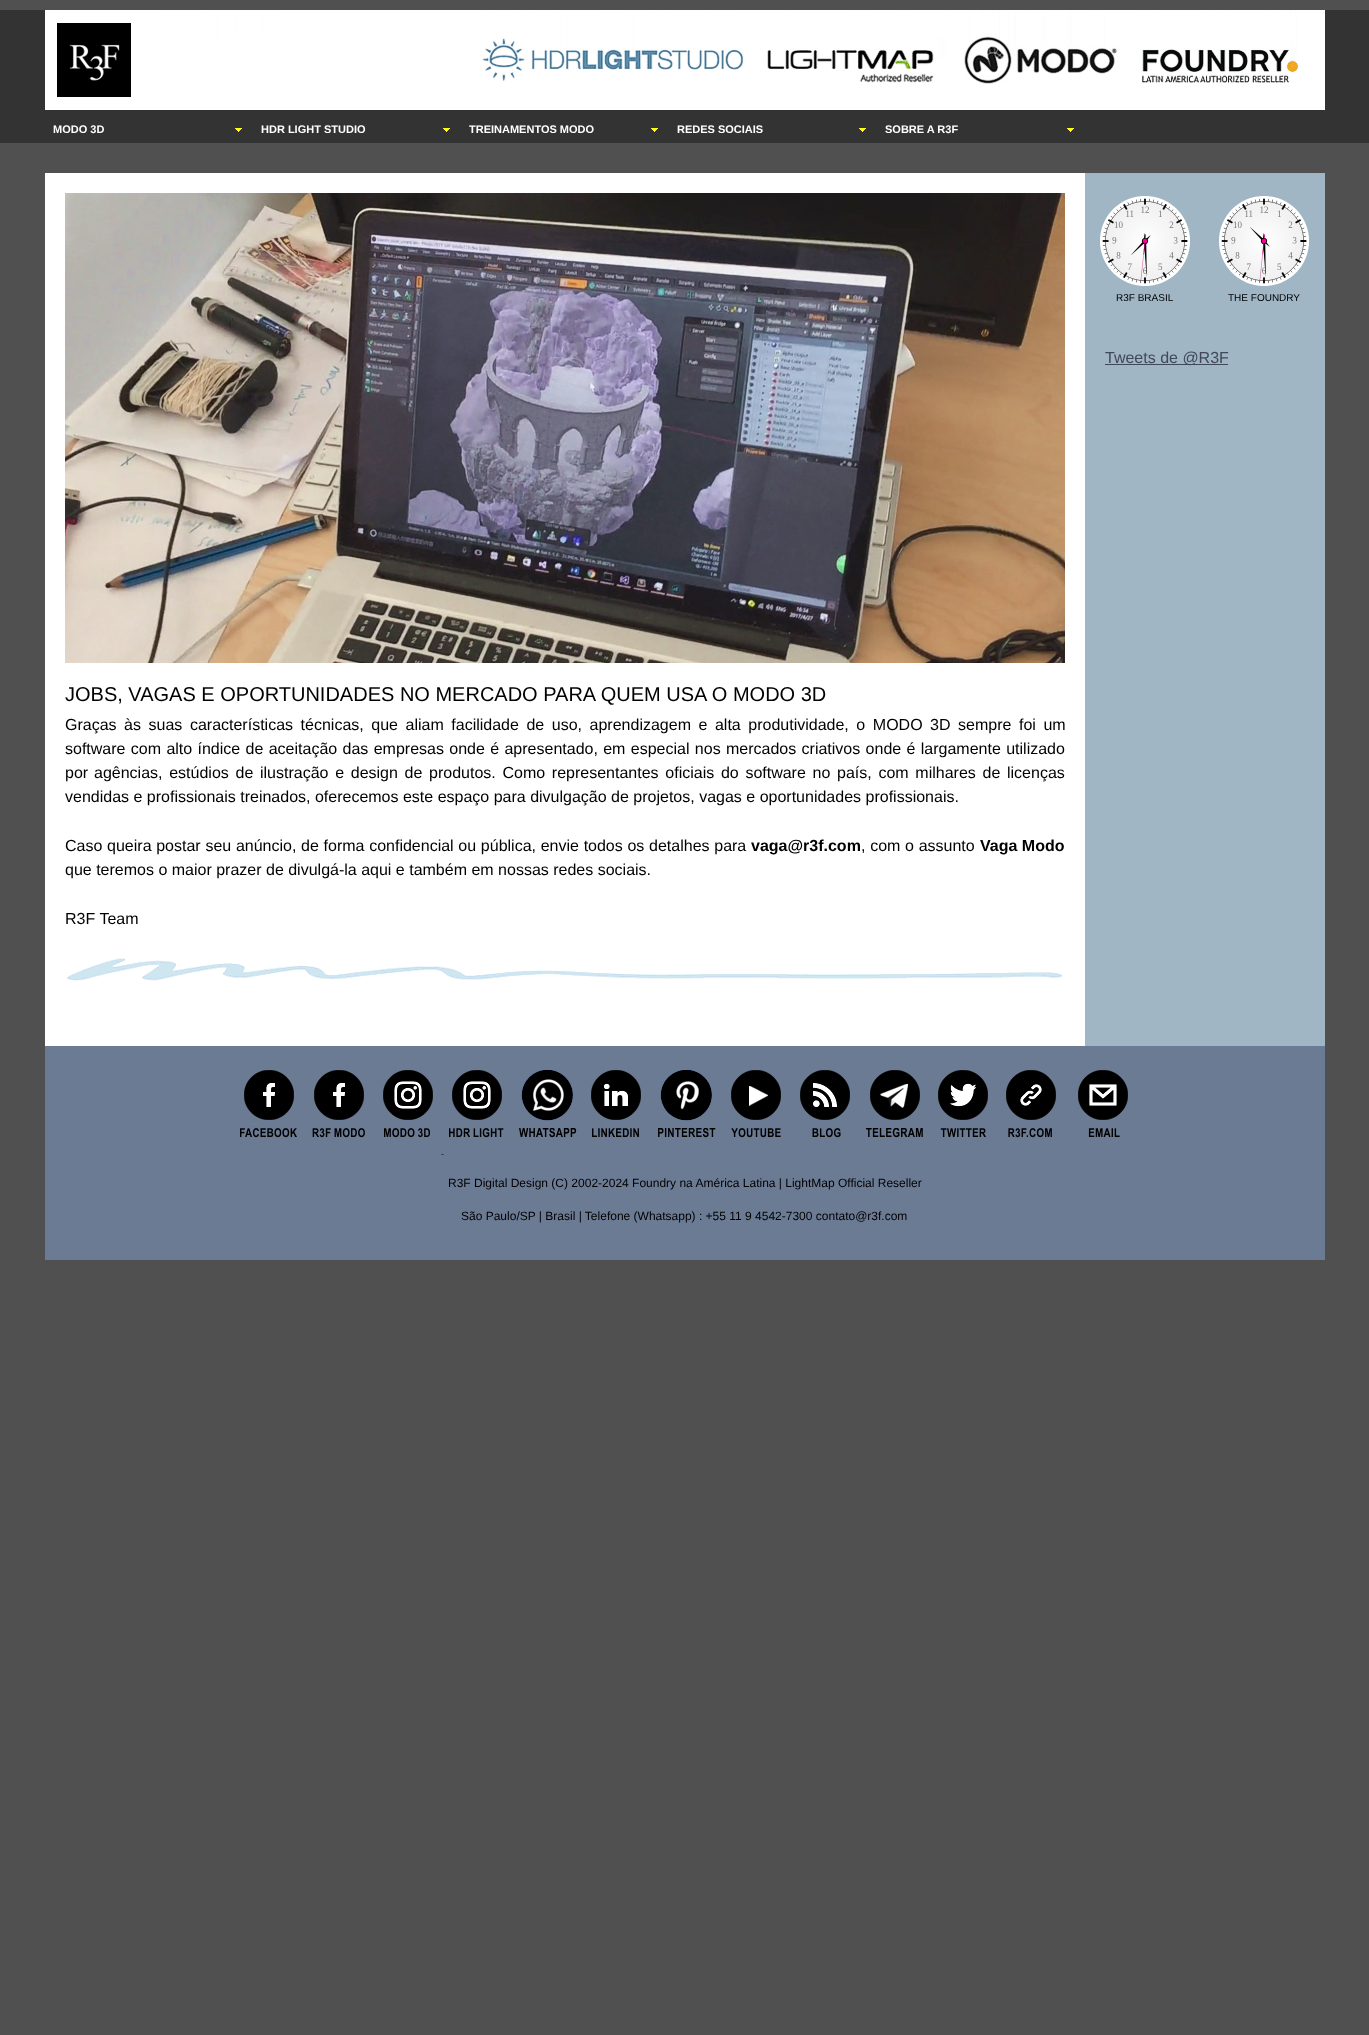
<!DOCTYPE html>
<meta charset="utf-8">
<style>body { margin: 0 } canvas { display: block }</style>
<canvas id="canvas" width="1369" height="2035"></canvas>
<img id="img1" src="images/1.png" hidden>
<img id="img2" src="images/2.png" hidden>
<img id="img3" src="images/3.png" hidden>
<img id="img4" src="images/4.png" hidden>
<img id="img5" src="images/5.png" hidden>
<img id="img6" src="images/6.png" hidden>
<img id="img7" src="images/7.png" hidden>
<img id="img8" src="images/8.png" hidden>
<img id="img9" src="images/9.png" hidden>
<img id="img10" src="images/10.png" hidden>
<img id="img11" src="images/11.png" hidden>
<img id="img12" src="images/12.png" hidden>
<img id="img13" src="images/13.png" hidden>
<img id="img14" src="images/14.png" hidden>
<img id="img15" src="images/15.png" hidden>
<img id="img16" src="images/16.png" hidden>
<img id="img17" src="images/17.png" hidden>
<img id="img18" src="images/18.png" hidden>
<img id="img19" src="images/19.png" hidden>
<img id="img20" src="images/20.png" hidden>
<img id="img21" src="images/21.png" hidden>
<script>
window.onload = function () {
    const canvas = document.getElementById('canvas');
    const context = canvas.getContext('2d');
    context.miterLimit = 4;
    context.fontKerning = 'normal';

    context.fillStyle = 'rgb(80, 80, 80)';
    context.fillRect(0, 0, 1369, 2035);
    context.fillStyle = 'rgb(51, 51, 51)';
    context.fillRect(0, 10, 1369, 133);
    context.drawImage(document.getElementById('img1'), 45, 10, 260, 100);
    context.drawImage(document.getElementById('img2'), 305, 10, 1020, 100);
    context.drawImage(document.getElementById('img3'), 235, 128, 7, 4);
    context.drawImage(document.getElementById('img3'), 443, 128, 7, 4);
    context.drawImage(document.getElementById('img3'), 651, 128, 7, 4);
    context.drawImage(document.getElementById('img3'), 859, 128, 7, 4);
    context.drawImage(document.getElementById('img3'), 1067, 128, 7, 4);
    context.drawImage(document.getElementById('img4'), 45, 173, 1280, 873);
    context.fillStyle = 'rgb(160, 182, 196)';
    context.fillRect(1085, 193, 1, 196);
    context.drawImage(document.getElementById('img5'), 1100, 196, 90, 90);
    context.drawImage(document.getElementById('img6'), 1219, 196, 90, 90);
    context.fillStyle = 'rgb(65, 73, 88)';
    context.fillRect(1105, 364, 123, 1);
    context.drawImage(document.getElementById('img7'), 65, 193, 1000, 470);
    context.drawImage(document.getElementById('img8'), 67, 958, 996, 23);
    context.fillStyle = 'rgb(107, 123, 148)';
    context.fillRect(45, 1046, 1280, 214);
    context.drawImage(document.getElementById('img9'), 240, 1066, 60, 72);
    context.drawImage(document.getElementById('img10'), 306, 1066, 64, 72);
    context.drawImage(document.getElementById('img11'), 377, 1066, 59, 72);
    context.drawImage(document.getElementById('img12'), 446, 1066, 59, 72);
    context.drawImage(document.getElementById('img13'), 519, 1070, 58, 68);
    context.drawImage(document.getElementById('img14'), 583, 1066, 66, 71);
    context.drawImage(document.getElementById('img15'), 658, 1070, 58, 68);
    context.drawImage(document.getElementById('img16'), 725, 1066, 61, 72);
    context.drawImage(document.getElementById('img17'), 792, 1066, 64, 72);
    context.drawImage(document.getElementById('img18'), 862, 1066, 64, 72);
    context.drawImage(document.getElementById('img19'), 933, 1066, 61, 71);
    context.drawImage(document.getElementById('img20'), 1006, 1066, 51, 72);
    context.drawImage(document.getElementById('img21'), 1070, 1066, 65, 71);
    context.fillStyle = 'rgb(65, 73, 88)';
    context.fillRect(441, 1154, 3, 1);
    context.font = 'bold 11px Liberation Sans';
    context.fillStyle = 'rgb(255, 255, 255)';
    context.fillText('MODO 3D', 53, 133);
    context.fillText('HDR LIGHT STUDIO', 261, 133);
    context.fillText('TREINAMENTOS MODO', 469, 133);
    context.fillText('REDES SOCIAIS', 677, 133);
    context.fillText('SOBRE A R3F', 885, 133);
    context.font = '10px Liberation Sans';
    context.fillStyle = 'rgb(0, 0, 0)';
    context.fillText('R3F BRASIL', 1116, 301);
    context.fillText('THE FOUNDRY', 1228, 301);
    context.font = '16px Liberation Sans';
    context.fillStyle = 'rgb(65, 73, 88)';
    context.fillText('Tweets de @R3F', 1105, 363);
    context.font = '20px Liberation Sans';
    context.fillStyle = 'rgb(0, 0, 0)';
    context.fillText('JOBS, VAGAS E OPORTUNIDADES NO MERCADO PARA QUEM USA O MODO 3D', 65, 701);
    context.wordSpacing = '3.1px';
    context.font = '16px Liberation Sans';
    context.fillText('Graças às suas características técnicas, que aliam facilidade de uso, aprendizagem e alta produtividade, o MODO 3D sempre foi um', 65, 730);
    context.wordSpacing = '0.9px';
    context.fillText('software com alto índice de aceitação das empresas onde é apresentado, em especial nos mercados criativos onde é largamente utilizado', 65, 754);
    context.wordSpacing = '0px';
    context.fillText('por', 65, 778);
    context.wordSpacing = '2.25px';
    context.fillText('agências, estúdios de ilustração e design de produtos. Como representantes oficiais do software no país, com milhares de licenças', 94, 778);
    context.wordSpacing = '0px';
    context.fillText('vendidas e profissionais treinados, oferecemos este espaço para divulgação de projetos, vagas e oportunidades profissionais.', 65, 802);
    context.wordSpacing = '0.25px';
    context.fillText('Caso queira postar seu anúncio, de forma confidencial ou pública, envie todos os detalhes para', 65, 851);
    context.wordSpacing = '0px';
    context.font = 'bold 16px Liberation Sans';
    context.fillText('vaga@r3f.com', 751, 851);
    context.wordSpacing = '0.25px';
    context.font = '16px Liberation Sans';
    context.fillText(', com o assunto', 861, 851);
    context.wordSpacing = '0px';
    context.font = 'bold 16px Liberation Sans';
    context.fillText('Vaga Modo', 980, 851);
    context.font = '16px Liberation Sans';
    context.fillText('que teremos o maior prazer de divulgá-la aqui e também em nossas redes sociais.', 65, 875);
    context.fillText('R3F Team', 65, 924);
    context.font = '12px Liberation Sans';
    context.fillText('R3F Digital Design (C) 2002-2024 Foundry na América Latina | LightMap Official Reseller', 448, 1187);
    context.fillText('São Paulo/SP | Brasil | Telefone (Whatsapp) : +55 11 9 4542-7300 contato@r3f.com', 461, 1220);
};
</script>
